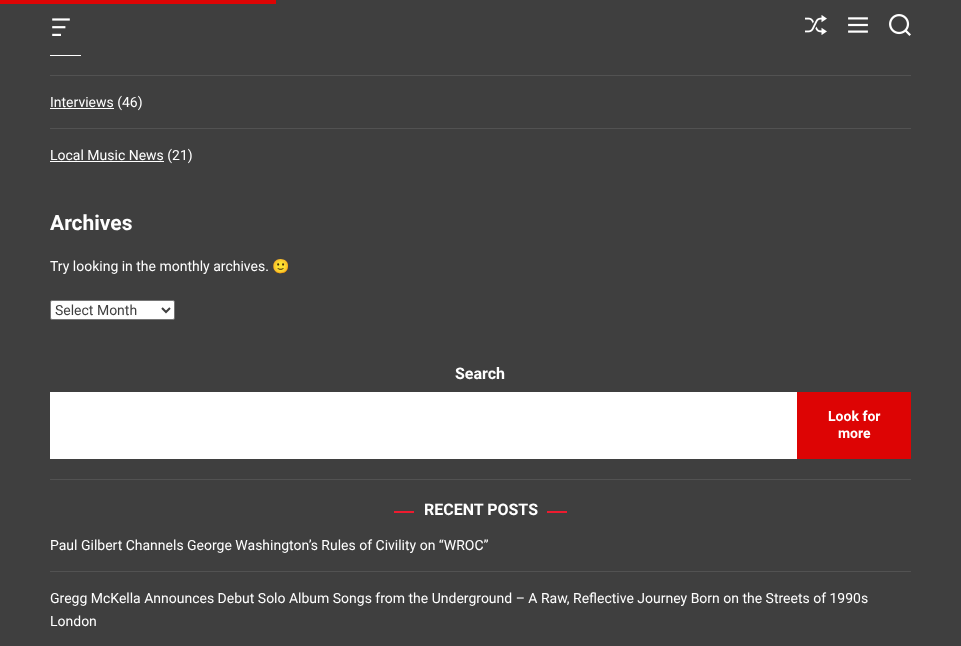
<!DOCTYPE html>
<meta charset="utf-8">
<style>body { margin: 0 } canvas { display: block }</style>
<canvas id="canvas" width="961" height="646"></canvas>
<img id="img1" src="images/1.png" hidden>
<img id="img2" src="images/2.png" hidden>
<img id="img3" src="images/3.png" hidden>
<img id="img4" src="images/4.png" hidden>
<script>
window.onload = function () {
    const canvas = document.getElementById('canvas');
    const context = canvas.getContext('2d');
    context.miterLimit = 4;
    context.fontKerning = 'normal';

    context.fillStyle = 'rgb(63, 63, 63)';
    context.fillRect(0, 0, 961, 646);
    context.fillStyle = 'rgb(221, 4, 4)';
    context.fillRect(0, 0, 276, 4);
    context.drawImage(document.getElementById('img1'), 52, 18, 18, 18);
    context.drawImage(document.getElementById('img2'), 805, 15, 22, 20);
    context.drawImage(document.getElementById('img3'), 848, 17, 20, 16);
    context.drawImage(document.getElementById('img4'), 889, 14, 22, 22);
    context.fillStyle = 'rgb(82, 82, 82)';
    context.fillRect(50, 75, 861, 1);
    context.fillStyle = 'rgb(255, 255, 255)';
    context.fillRect(50, 55, 31, 1);
    context.fillStyle = 'rgb(82, 82, 82)';
    context.fillRect(50, 128, 861, 1);
    context.fillStyle = 'rgb(255, 255, 255)';
    context.fillRect(50, 108, 64, 1);
    context.fillRect(50, 161, 114, 1);
    context.beginPath();
    context.roundRect(50.5, 300.5, 124, 19, 1.5);
    context.fill();
    context.strokeStyle = 'rgb(118, 118, 118)';
    context.stroke();
    context.beginPath();
    context.moveTo(162, 308);
    context.lineTo(166, 312);
    context.lineTo(170, 308);
    context.strokeStyle = 'rgb(64, 64, 64)';
    context.lineWidth = 2;
    context.stroke();
    context.fillStyle = 'rgb(82, 82, 82)';
    context.fillRect(50, 479, 861, 1);
    context.fillStyle = 'rgb(255, 255, 255)';
    context.fillRect(50, 392, 747, 67);
    context.fillStyle = 'rgb(221, 4, 4)';
    context.fillRect(797, 392, 114, 67);
    context.fillStyle = 'rgb(237, 27, 47)';
    context.fillRect(394, 511, 20, 2);
    context.fillRect(547, 511, 20, 2);
    context.fillStyle = 'rgb(82, 82, 82)';
    context.fillRect(50, 571, 861, 1);
    context.font = '14px Roboto';
    context.fillStyle = 'rgb(255, 255, 255)';
    context.fillText('Interviews (46)', 50, 107);
    context.fillText('Local Music News (21)', 50, 160);
    context.font = 'bold 21px Roboto';
    context.fillText('Archives', 50, 230);
    context.font = '14px Roboto';
    context.fillText('Try looking in the monthly archives.', 50, 271);
    context.font = '14px Noto Color Emoji';
    context.fillText('🙂', 272, 271);
    context.font = '14px Roboto';
    context.fillStyle = 'rgb(64, 64, 64)';
    context.fillText('Select Month', 55, 315);
    context.font = 'bold 16px Roboto';
    context.fillStyle = 'rgb(255, 255, 255)';
    context.fillText('Search', 455, 379);
    context.font = 'bold 14px Roboto';
    context.fillText('Look for', 828, 421);
    context.fillText('more', 838, 438);
    context.font = 'bold 16px Roboto';
    context.fillText('RECENT POSTS', 424, 515);
    context.font = '14px Roboto';
    context.fillText('Paul Gilbert Channels George Washington’s Rules of Civility on “WROC”', 50, 550);
    context.fillText('Gregg McKella Announces Debut Solo Album Songs from the Underground – A Raw, Reflective Journey Born on the Streets of 1990s', 50, 603);
    context.fillText('London', 50, 626);
};
</script>
